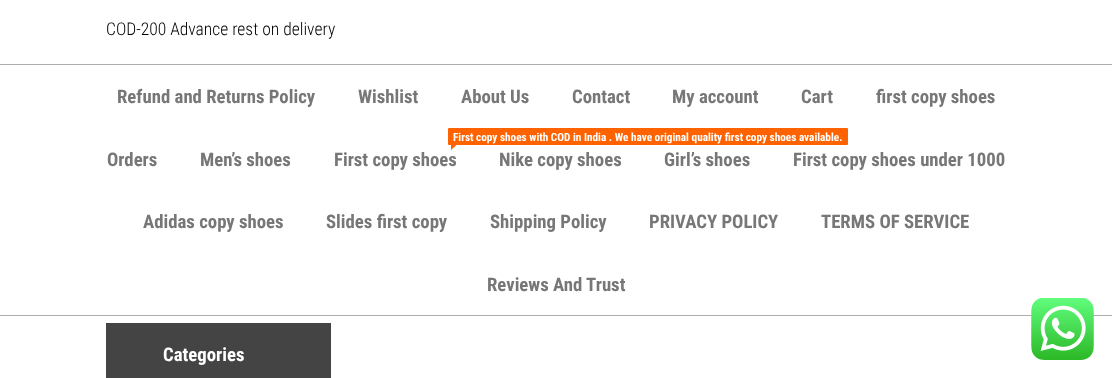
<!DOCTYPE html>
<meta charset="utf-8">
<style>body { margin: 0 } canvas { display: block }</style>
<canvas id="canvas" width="1112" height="378"></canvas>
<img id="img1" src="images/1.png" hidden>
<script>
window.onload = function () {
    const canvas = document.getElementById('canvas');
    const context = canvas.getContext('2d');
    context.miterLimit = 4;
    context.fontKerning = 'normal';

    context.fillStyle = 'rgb(255, 255, 255)';
    context.fillRect(0, 0, 1112, 378);
    context.fillStyle = 'rgb(172, 172, 172)';
    context.fillRect(0, 64, 1112, 1);
    context.fillRect(0, 315, 1112, 1);
    context.fillStyle = 'rgb(255, 99, 0)';
    context.beginPath();
    context.roundRect(448, 128, 400, 17, 1);
    context.fill();
    context.beginPath();
    context.moveTo(451, 144);
    context.lineTo(457.5, 144);
    context.lineTo(451, 150);
    context.closePath();
    context.fill();
    context.fillStyle = 'rgb(68, 68, 68)';
    context.fillRect(106, 323, 225, 55);
    context.drawImage(document.getElementById('img1'), 1031, 298, 63, 62);
    context.font = '300 17.5px Roboto Condensed';
    context.fillStyle = 'rgb(0, 0, 0)';
    context.fillText('COD-200 Advance rest on delivery', 106, 35);
    context.font = 'bold 18.75px Roboto Condensed';
    context.fillStyle = 'rgb(119, 119, 119)';
    context.fillText('Refund and Returns Policy', 117, 103);
    context.fillText('Wishlist', 358, 103);
    context.fillText('About Us', 461, 103);
    context.fillText('Contact', 572, 103);
    context.fillText('My account', 672, 103);
    context.fillText('Cart', 801, 103);
    context.fillText('first copy shoes', 876, 103);
    context.fillText('Orders', 107, 166);
    context.fillText('Men’s shoes', 200, 166);
    context.font = 'bold 11.25px Roboto Condensed';
    context.fillStyle = 'rgb(255, 255, 255)';
    context.fillText('First copy shoes with COD in India . We have original quality first copy shoes available.', 453, 141);
    context.font = 'bold 18.75px Roboto Condensed';
    context.fillStyle = 'rgb(119, 119, 119)';
    context.fillText('First copy shoes', 334, 166);
    context.fillText('Nike copy shoes', 499, 166);
    context.fillText('Girl’s shoes', 664, 166);
    context.fillText('First copy shoes under 1000', 793, 166);
    context.fillText('Adidas copy shoes', 143, 228);
    context.fillText('Slides first copy', 326, 228);
    context.fillText('Shipping Policy', 490, 228);
    context.fillText('PRIVACY POLICY', 649, 228);
    context.fillText('TERMS OF SERVICE', 821, 228);
    context.fillText('Reviews And Trust', 487, 291);
    context.fillStyle = 'rgb(255, 255, 255)';
    context.fillText('Categories', 163, 361);
};
</script>
